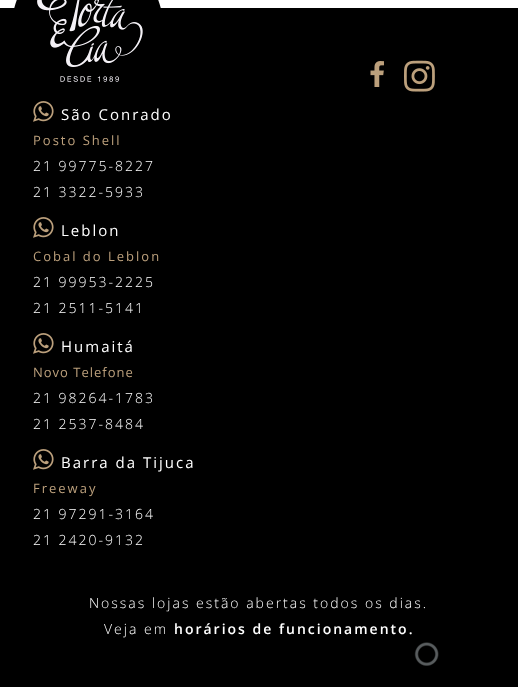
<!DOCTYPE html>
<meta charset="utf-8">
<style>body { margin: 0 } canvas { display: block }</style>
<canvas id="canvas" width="518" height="687"></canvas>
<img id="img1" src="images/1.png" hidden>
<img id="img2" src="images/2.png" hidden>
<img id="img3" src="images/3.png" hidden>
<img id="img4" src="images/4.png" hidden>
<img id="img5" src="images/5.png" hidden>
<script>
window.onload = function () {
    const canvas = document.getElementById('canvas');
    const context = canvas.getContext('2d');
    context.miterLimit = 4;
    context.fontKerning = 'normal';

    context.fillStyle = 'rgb(255, 255, 255)';
    context.fillRect(0, 0, 518, 687);
    context.fillStyle = 'rgb(0, 0, 0)';
    context.fillRect(0, 8, 518, 679);
    context.drawImage(document.getElementById('img1'), 370, 61, 14, 26);
    context.drawImage(document.getElementById('img2'), 404, 60, 31, 32);
    context.drawImage(document.getElementById('img3'), 14, 0, 147, 82);
    context.drawImage(document.getElementById('img4'), 33, 101, 21, 21);
    context.drawImage(document.getElementById('img4'), 33, 217, 21, 21);
    context.drawImage(document.getElementById('img4'), 33, 333, 21, 21);
    context.drawImage(document.getElementById('img4'), 33, 449, 21, 21);
    context.drawImage(document.getElementById('img5'), 414, 642, 25, 24);
    context.letterSpacing = '2px';
    context.font = '15px Open Sans';
    context.fillStyle = 'rgb(255, 255, 255)';
    context.fillText('São Conrado', 61, 120);
    context.font = '13px Open Sans';
    context.fillStyle = 'rgb(188, 160, 124)';
    context.fillText('Posto Shell', 33, 145);
    context.font = '300 14px Open Sans';
    context.fillStyle = 'rgb(255, 255, 255)';
    context.fillText('21 99775-8227', 33, 171);
    context.fillText('21 3322-5933', 33, 197);
    context.font = '15px Open Sans';
    context.fillText('Leblon', 61, 236);
    context.font = '13px Open Sans';
    context.fillStyle = 'rgb(188, 160, 124)';
    context.fillText('Cobal do Leblon', 33, 261);
    context.font = '300 14px Open Sans';
    context.fillStyle = 'rgb(255, 255, 255)';
    context.fillText('21 99953-2225', 33, 287);
    context.fillText('21 2511-5141', 33, 313);
    context.font = '15px Open Sans';
    context.fillText('Humaitá', 61, 352);
    context.letterSpacing = '1px';
    context.font = '13px Open Sans';
    context.fillStyle = 'rgb(188, 160, 124)';
    context.fillText('Novo Telefone', 33, 377);
    context.letterSpacing = '2px';
    context.font = '300 14px Open Sans';
    context.fillStyle = 'rgb(255, 255, 255)';
    context.fillText('21 98264-1783', 33, 403);
    context.fillText('21 2537-8484', 33, 429);
    context.font = '15px Open Sans';
    context.fillText('Barra da Tijuca', 61, 468);
    context.font = '13px Open Sans';
    context.fillStyle = 'rgb(188, 160, 124)';
    context.fillText('Freeway', 33, 493);
    context.font = '300 14px Open Sans';
    context.fillStyle = 'rgb(255, 255, 255)';
    context.fillText('21 97291-3164', 33, 519);
    context.fillText('21 2420-9132', 33, 545);
    context.fillText('Nossas lojas estão abertas todos os dias.', 89, 608);
    context.fillText('Veja em', 104, 634);
    context.font = '600 14px Open Sans';
    context.fillText('horários de funcionamento.', 174, 634);
};
</script>
